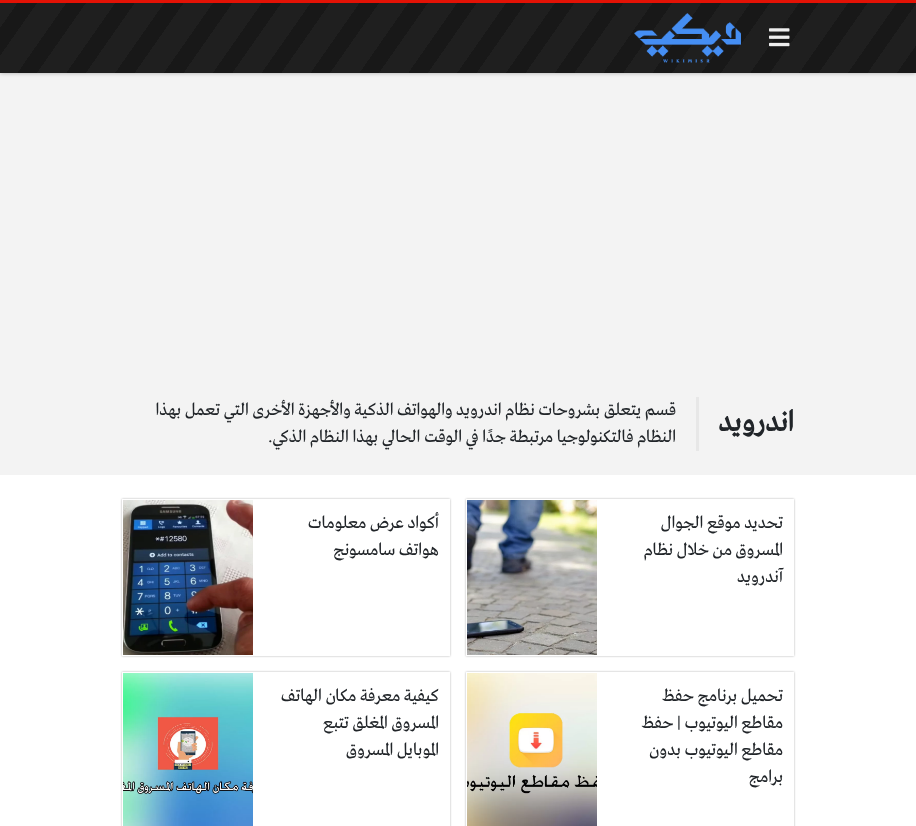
<!DOCTYPE html>
<meta charset="utf-8">
<style>body { margin: 0 } canvas { display: block }</style>
<canvas id="canvas" width="916" height="826"></canvas>
<img id="img1" src="images/1.png" hidden>
<img id="img2" src="images/2.png" hidden>
<img id="img3" src="images/3.png" hidden>
<img id="img4" src="images/4.png" hidden>
<img id="img5" src="images/5.png" hidden>
<img id="img6" src="images/6.png" hidden>
<script>
window.onload = function () {
    const canvas = document.getElementById('canvas');
    const context = canvas.getContext('2d');
    context.miterLimit = 4;
    context.fontKerning = 'normal';
    let gradient;

    context.fillStyle = 'rgb(243, 243, 243)';
    context.fillRect(0, 0, 916, 826);
    context.fillStyle = 'rgba(0, 0, 0, 0.3)';
    context.filter = 'blur(2px)';
    context.beginPath();
    context.rect(0, 0, 916, 73);
    context.fill();
    context.filter = 'none';
    context.fillStyle = 'rgb(227, 18, 5)';
    context.fillRect(0, 0, 916, 3);
    gradient = context.createLinearGradient(782, 265, 126, -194);
    gradient.addColorStop(0, 'rgb(24, 24, 24)');
    gradient.addColorStop(0.01, 'rgb(24, 24, 24)');
    gradient.addColorStop(0.01, 'rgb(31, 31, 31)');
    gradient.addColorStop(0.01, 'rgb(24, 24, 24)');
    gradient.addColorStop(0.02, 'rgb(24, 24, 24)');
    gradient.addColorStop(0.02, 'rgb(31, 31, 31)');
    gradient.addColorStop(0.03, 'rgb(31, 31, 31)');
    gradient.addColorStop(0.03, 'rgb(24, 24, 24)');
    gradient.addColorStop(0.03, 'rgb(31, 31, 31)');
    gradient.addColorStop(0.04, 'rgb(31, 31, 31)');
    gradient.addColorStop(0.04, 'rgb(24, 24, 24)');
    gradient.addColorStop(0.04, 'rgb(31, 31, 31)');
    gradient.addColorStop(0.05, 'rgb(31, 31, 31)');
    gradient.addColorStop(0.05, 'rgb(24, 24, 24)');
    gradient.addColorStop(0.06, 'rgb(24, 24, 24)');
    gradient.addColorStop(0.06, 'rgb(31, 31, 31)');
    gradient.addColorStop(0.06, 'rgb(24, 24, 24)');
    gradient.addColorStop(0.07, 'rgb(24, 24, 24)');
    gradient.addColorStop(0.07, 'rgb(31, 31, 31)');
    gradient.addColorStop(0.08, 'rgb(31, 31, 31)');
    gradient.addColorStop(0.08, 'rgb(24, 24, 24)');
    gradient.addColorStop(0.08, 'rgb(31, 31, 31)');
    gradient.addColorStop(0.09, 'rgb(31, 31, 31)');
    gradient.addColorStop(0.09, 'rgb(24, 24, 24)');
    gradient.addColorStop(0.09, 'rgb(31, 31, 31)');
    gradient.addColorStop(0.1, 'rgb(31, 31, 31)');
    gradient.addColorStop(0.1, 'rgb(24, 24, 24)');
    gradient.addColorStop(0.11, 'rgb(24, 24, 24)');
    gradient.addColorStop(0.11, 'rgb(31, 31, 31)');
    gradient.addColorStop(0.11, 'rgb(24, 24, 24)');
    gradient.addColorStop(0.12, 'rgb(24, 24, 24)');
    gradient.addColorStop(0.12, 'rgb(31, 31, 31)');
    gradient.addColorStop(0.13, 'rgb(31, 31, 31)');
    gradient.addColorStop(0.13, 'rgb(24, 24, 24)');
    gradient.addColorStop(0.13, 'rgb(31, 31, 31)');
    gradient.addColorStop(0.14, 'rgb(31, 31, 31)');
    gradient.addColorStop(0.14, 'rgb(24, 24, 24)');
    gradient.addColorStop(0.14, 'rgb(31, 31, 31)');
    gradient.addColorStop(0.15, 'rgb(31, 31, 31)');
    gradient.addColorStop(0.15, 'rgb(24, 24, 24)');
    gradient.addColorStop(0.16, 'rgb(24, 24, 24)');
    gradient.addColorStop(0.16, 'rgb(31, 31, 31)');
    gradient.addColorStop(0.16, 'rgb(24, 24, 24)');
    gradient.addColorStop(0.17, 'rgb(24, 24, 24)');
    gradient.addColorStop(0.17, 'rgb(31, 31, 31)');
    gradient.addColorStop(0.18, 'rgb(31, 31, 31)');
    gradient.addColorStop(0.18, 'rgb(24, 24, 24)');
    gradient.addColorStop(0.18, 'rgb(31, 31, 31)');
    gradient.addColorStop(0.19, 'rgb(31, 31, 31)');
    gradient.addColorStop(0.19, 'rgb(24, 24, 24)');
    gradient.addColorStop(0.19, 'rgb(31, 31, 31)');
    gradient.addColorStop(0.2, 'rgb(31, 31, 31)');
    gradient.addColorStop(0.2, 'rgb(24, 24, 24)');
    gradient.addColorStop(0.21, 'rgb(24, 24, 24)');
    gradient.addColorStop(0.21, 'rgb(31, 31, 31)');
    gradient.addColorStop(0.21, 'rgb(24, 24, 24)');
    gradient.addColorStop(0.22, 'rgb(24, 24, 24)');
    gradient.addColorStop(0.22, 'rgb(31, 31, 31)');
    gradient.addColorStop(0.23, 'rgb(31, 31, 31)');
    gradient.addColorStop(0.23, 'rgb(24, 24, 24)');
    gradient.addColorStop(0.23, 'rgb(31, 31, 31)');
    gradient.addColorStop(0.24, 'rgb(31, 31, 31)');
    gradient.addColorStop(0.24, 'rgb(24, 24, 24)');
    gradient.addColorStop(0.24, 'rgb(31, 31, 31)');
    gradient.addColorStop(0.25, 'rgb(31, 31, 31)');
    gradient.addColorStop(0.25, 'rgb(24, 24, 24)');
    gradient.addColorStop(0.26, 'rgb(24, 24, 24)');
    gradient.addColorStop(0.26, 'rgb(31, 31, 31)');
    gradient.addColorStop(0.26, 'rgb(24, 24, 24)');
    gradient.addColorStop(0.27, 'rgb(24, 24, 24)');
    gradient.addColorStop(0.27, 'rgb(31, 31, 31)');
    gradient.addColorStop(0.28, 'rgb(31, 31, 31)');
    gradient.addColorStop(0.28, 'rgb(24, 24, 24)');
    gradient.addColorStop(0.28, 'rgb(31, 31, 31)');
    gradient.addColorStop(0.29, 'rgb(31, 31, 31)');
    gradient.addColorStop(0.29, 'rgb(24, 24, 24)');
    gradient.addColorStop(0.29, 'rgb(31, 31, 31)');
    gradient.addColorStop(0.3, 'rgb(31, 31, 31)');
    gradient.addColorStop(0.3, 'rgb(24, 24, 24)');
    gradient.addColorStop(0.31, 'rgb(24, 24, 24)');
    gradient.addColorStop(0.31, 'rgb(31, 31, 31)');
    gradient.addColorStop(0.31, 'rgb(24, 24, 24)');
    gradient.addColorStop(0.32, 'rgb(24, 24, 24)');
    gradient.addColorStop(0.32, 'rgb(31, 31, 31)');
    gradient.addColorStop(0.33, 'rgb(31, 31, 31)');
    gradient.addColorStop(0.33, 'rgb(24, 24, 24)');
    gradient.addColorStop(0.33, 'rgb(31, 31, 31)');
    gradient.addColorStop(0.34, 'rgb(31, 31, 31)');
    gradient.addColorStop(0.34, 'rgb(24, 24, 24)');
    gradient.addColorStop(0.34, 'rgb(31, 31, 31)');
    gradient.addColorStop(0.35, 'rgb(31, 31, 31)');
    gradient.addColorStop(0.35, 'rgb(24, 24, 24)');
    gradient.addColorStop(0.36, 'rgb(24, 24, 24)');
    gradient.addColorStop(0.36, 'rgb(31, 31, 31)');
    gradient.addColorStop(0.36, 'rgb(24, 24, 24)');
    gradient.addColorStop(0.37, 'rgb(24, 24, 24)');
    gradient.addColorStop(0.37, 'rgb(31, 31, 31)');
    gradient.addColorStop(0.38, 'rgb(31, 31, 31)');
    gradient.addColorStop(0.38, 'rgb(24, 24, 24)');
    gradient.addColorStop(0.38, 'rgb(31, 31, 31)');
    gradient.addColorStop(0.39, 'rgb(31, 31, 31)');
    gradient.addColorStop(0.39, 'rgb(24, 24, 24)');
    gradient.addColorStop(0.39, 'rgb(31, 31, 31)');
    gradient.addColorStop(0.4, 'rgb(31, 31, 31)');
    gradient.addColorStop(0.4, 'rgb(24, 24, 24)');
    gradient.addColorStop(0.41, 'rgb(24, 24, 24)');
    gradient.addColorStop(0.41, 'rgb(31, 31, 31)');
    gradient.addColorStop(0.41, 'rgb(24, 24, 24)');
    gradient.addColorStop(0.42, 'rgb(24, 24, 24)');
    gradient.addColorStop(0.42, 'rgb(31, 31, 31)');
    gradient.addColorStop(0.43, 'rgb(31, 31, 31)');
    gradient.addColorStop(0.43, 'rgb(24, 24, 24)');
    gradient.addColorStop(0.43, 'rgb(31, 31, 31)');
    gradient.addColorStop(0.44, 'rgb(31, 31, 31)');
    gradient.addColorStop(0.44, 'rgb(24, 24, 24)');
    gradient.addColorStop(0.44, 'rgb(31, 31, 31)');
    gradient.addColorStop(0.45, 'rgb(31, 31, 31)');
    gradient.addColorStop(0.45, 'rgb(24, 24, 24)');
    gradient.addColorStop(0.46, 'rgb(24, 24, 24)');
    gradient.addColorStop(0.46, 'rgb(31, 31, 31)');
    gradient.addColorStop(0.46, 'rgb(24, 24, 24)');
    gradient.addColorStop(0.47, 'rgb(24, 24, 24)');
    gradient.addColorStop(0.47, 'rgb(31, 31, 31)');
    gradient.addColorStop(0.48, 'rgb(31, 31, 31)');
    gradient.addColorStop(0.48, 'rgb(24, 24, 24)');
    gradient.addColorStop(0.48, 'rgb(31, 31, 31)');
    gradient.addColorStop(0.49, 'rgb(31, 31, 31)');
    gradient.addColorStop(0.49, 'rgb(24, 24, 24)');
    gradient.addColorStop(0.49, 'rgb(31, 31, 31)');
    gradient.addColorStop(0.5, 'rgb(31, 31, 31)');
    gradient.addColorStop(0.5, 'rgb(24, 24, 24)');
    gradient.addColorStop(0.51, 'rgb(24, 24, 24)');
    gradient.addColorStop(0.51, 'rgb(31, 31, 31)');
    gradient.addColorStop(0.51, 'rgb(24, 24, 24)');
    gradient.addColorStop(0.52, 'rgb(24, 24, 24)');
    gradient.addColorStop(0.52, 'rgb(31, 31, 31)');
    gradient.addColorStop(0.53, 'rgb(31, 31, 31)');
    gradient.addColorStop(0.53, 'rgb(24, 24, 24)');
    gradient.addColorStop(0.53, 'rgb(31, 31, 31)');
    gradient.addColorStop(0.54, 'rgb(31, 31, 31)');
    gradient.addColorStop(0.54, 'rgb(24, 24, 24)');
    gradient.addColorStop(0.54, 'rgb(31, 31, 31)');
    gradient.addColorStop(0.55, 'rgb(31, 31, 31)');
    gradient.addColorStop(0.55, 'rgb(24, 24, 24)');
    gradient.addColorStop(0.56, 'rgb(24, 24, 24)');
    gradient.addColorStop(0.56, 'rgb(31, 31, 31)');
    gradient.addColorStop(0.56, 'rgb(24, 24, 24)');
    gradient.addColorStop(0.57, 'rgb(24, 24, 24)');
    gradient.addColorStop(0.57, 'rgb(31, 31, 31)');
    gradient.addColorStop(0.58, 'rgb(31, 31, 31)');
    gradient.addColorStop(0.58, 'rgb(24, 24, 24)');
    gradient.addColorStop(0.58, 'rgb(31, 31, 31)');
    gradient.addColorStop(0.59, 'rgb(31, 31, 31)');
    gradient.addColorStop(0.59, 'rgb(24, 24, 24)');
    gradient.addColorStop(0.59, 'rgb(31, 31, 31)');
    gradient.addColorStop(0.6, 'rgb(31, 31, 31)');
    gradient.addColorStop(0.6, 'rgb(24, 24, 24)');
    gradient.addColorStop(0.61, 'rgb(24, 24, 24)');
    gradient.addColorStop(0.61, 'rgb(31, 31, 31)');
    gradient.addColorStop(0.61, 'rgb(24, 24, 24)');
    gradient.addColorStop(0.62, 'rgb(24, 24, 24)');
    gradient.addColorStop(0.62, 'rgb(31, 31, 31)');
    gradient.addColorStop(0.63, 'rgb(31, 31, 31)');
    gradient.addColorStop(0.63, 'rgb(24, 24, 24)');
    gradient.addColorStop(0.63, 'rgb(31, 31, 31)');
    gradient.addColorStop(0.64, 'rgb(31, 31, 31)');
    gradient.addColorStop(0.64, 'rgb(24, 24, 24)');
    gradient.addColorStop(0.64, 'rgb(31, 31, 31)');
    gradient.addColorStop(0.65, 'rgb(31, 31, 31)');
    gradient.addColorStop(0.65, 'rgb(24, 24, 24)');
    gradient.addColorStop(0.66, 'rgb(24, 24, 24)');
    gradient.addColorStop(0.66, 'rgb(31, 31, 31)');
    gradient.addColorStop(0.66, 'rgb(24, 24, 24)');
    gradient.addColorStop(0.67, 'rgb(24, 24, 24)');
    gradient.addColorStop(0.67, 'rgb(31, 31, 31)');
    gradient.addColorStop(0.68, 'rgb(31, 31, 31)');
    gradient.addColorStop(0.68, 'rgb(24, 24, 24)');
    gradient.addColorStop(0.68, 'rgb(31, 31, 31)');
    gradient.addColorStop(0.69, 'rgb(31, 31, 31)');
    gradient.addColorStop(0.69, 'rgb(24, 24, 24)');
    gradient.addColorStop(0.69, 'rgb(31, 31, 31)');
    gradient.addColorStop(0.7, 'rgb(31, 31, 31)');
    gradient.addColorStop(0.7, 'rgb(24, 24, 24)');
    gradient.addColorStop(0.71, 'rgb(24, 24, 24)');
    gradient.addColorStop(0.71, 'rgb(31, 31, 31)');
    gradient.addColorStop(0.71, 'rgb(24, 24, 24)');
    gradient.addColorStop(0.72, 'rgb(24, 24, 24)');
    gradient.addColorStop(0.72, 'rgb(31, 31, 31)');
    gradient.addColorStop(0.73, 'rgb(31, 31, 31)');
    gradient.addColorStop(0.73, 'rgb(24, 24, 24)');
    gradient.addColorStop(0.73, 'rgb(31, 31, 31)');
    gradient.addColorStop(0.74, 'rgb(31, 31, 31)');
    gradient.addColorStop(0.74, 'rgb(24, 24, 24)');
    gradient.addColorStop(0.74, 'rgb(31, 31, 31)');
    gradient.addColorStop(0.75, 'rgb(31, 31, 31)');
    gradient.addColorStop(0.75, 'rgb(24, 24, 24)');
    gradient.addColorStop(0.76, 'rgb(24, 24, 24)');
    gradient.addColorStop(0.76, 'rgb(31, 31, 31)');
    gradient.addColorStop(0.76, 'rgb(24, 24, 24)');
    gradient.addColorStop(0.77, 'rgb(24, 24, 24)');
    gradient.addColorStop(0.77, 'rgb(31, 31, 31)');
    gradient.addColorStop(0.78, 'rgb(31, 31, 31)');
    gradient.addColorStop(0.78, 'rgb(24, 24, 24)');
    gradient.addColorStop(0.78, 'rgb(31, 31, 31)');
    gradient.addColorStop(0.79, 'rgb(31, 31, 31)');
    gradient.addColorStop(0.79, 'rgb(24, 24, 24)');
    gradient.addColorStop(0.79, 'rgb(31, 31, 31)');
    gradient.addColorStop(0.8, 'rgb(31, 31, 31)');
    gradient.addColorStop(0.8, 'rgb(24, 24, 24)');
    gradient.addColorStop(0.81, 'rgb(24, 24, 24)');
    gradient.addColorStop(0.81, 'rgb(31, 31, 31)');
    gradient.addColorStop(0.81, 'rgb(24, 24, 24)');
    gradient.addColorStop(0.82, 'rgb(24, 24, 24)');
    gradient.addColorStop(0.82, 'rgb(31, 31, 31)');
    gradient.addColorStop(0.83, 'rgb(31, 31, 31)');
    gradient.addColorStop(0.83, 'rgb(24, 24, 24)');
    gradient.addColorStop(0.83, 'rgb(31, 31, 31)');
    gradient.addColorStop(0.84, 'rgb(31, 31, 31)');
    gradient.addColorStop(0.84, 'rgb(24, 24, 24)');
    gradient.addColorStop(0.84, 'rgb(31, 31, 31)');
    gradient.addColorStop(0.85, 'rgb(31, 31, 31)');
    gradient.addColorStop(0.85, 'rgb(24, 24, 24)');
    gradient.addColorStop(0.86, 'rgb(24, 24, 24)');
    gradient.addColorStop(0.86, 'rgb(31, 31, 31)');
    gradient.addColorStop(0.86, 'rgb(24, 24, 24)');
    gradient.addColorStop(0.87, 'rgb(24, 24, 24)');
    gradient.addColorStop(0.87, 'rgb(31, 31, 31)');
    gradient.addColorStop(0.88, 'rgb(31, 31, 31)');
    gradient.addColorStop(0.88, 'rgb(24, 24, 24)');
    gradient.addColorStop(0.88, 'rgb(31, 31, 31)');
    gradient.addColorStop(0.89, 'rgb(31, 31, 31)');
    gradient.addColorStop(0.89, 'rgb(24, 24, 24)');
    gradient.addColorStop(0.89, 'rgb(31, 31, 31)');
    gradient.addColorStop(0.9, 'rgb(31, 31, 31)');
    gradient.addColorStop(0.9, 'rgb(24, 24, 24)');
    gradient.addColorStop(0.91, 'rgb(24, 24, 24)');
    gradient.addColorStop(0.91, 'rgb(31, 31, 31)');
    gradient.addColorStop(0.91, 'rgb(24, 24, 24)');
    gradient.addColorStop(0.92, 'rgb(24, 24, 24)');
    gradient.addColorStop(0.92, 'rgb(31, 31, 31)');
    gradient.addColorStop(0.93, 'rgb(31, 31, 31)');
    gradient.addColorStop(0.93, 'rgb(24, 24, 24)');
    gradient.addColorStop(0.93, 'rgb(31, 31, 31)');
    gradient.addColorStop(0.94, 'rgb(31, 31, 31)');
    gradient.addColorStop(0.94, 'rgb(24, 24, 24)');
    gradient.addColorStop(0.94, 'rgb(31, 31, 31)');
    gradient.addColorStop(0.95, 'rgb(31, 31, 31)');
    gradient.addColorStop(0.95, 'rgb(24, 24, 24)');
    gradient.addColorStop(0.96, 'rgb(24, 24, 24)');
    gradient.addColorStop(0.96, 'rgb(31, 31, 31)');
    gradient.addColorStop(0.96, 'rgb(24, 24, 24)');
    gradient.addColorStop(0.97, 'rgb(24, 24, 24)');
    gradient.addColorStop(0.97, 'rgb(31, 31, 31)');
    gradient.addColorStop(0.98, 'rgb(31, 31, 31)');
    gradient.addColorStop(0.98, 'rgb(24, 24, 24)');
    gradient.addColorStop(0.98, 'rgb(31, 31, 31)');
    gradient.addColorStop(0.99, 'rgb(31, 31, 31)');
    gradient.addColorStop(0.99, 'rgb(24, 24, 24)');
    gradient.addColorStop(0.99, 'rgb(31, 31, 31)');
    gradient.addColorStop(1, 'rgb(31, 31, 31)');
    context.fillStyle = gradient;
    context.fillRect(0, 3, 916, 70);
    context.drawImage(document.getElementById('img1'), 769, 28, 21, 19);
    context.drawImage(document.getElementById('img2'), 634, 13, 107, 50);
    context.fillStyle = 'rgb(231, 231, 231)';
    context.fillRect(696, 397, 3, 54);
    context.fillStyle = 'rgb(255, 255, 255)';
    context.fillRect(0, 475, 916, 351);
    context.save();
    context.beginPath();
    context.moveTo(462, 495);
    context.lineTo(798, 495);
    context.lineTo(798, 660);
    context.lineTo(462, 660);
    context.closePath();
    context.moveTo(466, 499);
    context.lineTo(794, 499);
    context.lineTo(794, 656);
    context.lineTo(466, 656);
    context.closePath();
    context.clip('evenodd');
    context.fillStyle = 'rgba(0, 0, 0, 0.3)';
    context.filter = 'blur(1px)';
    context.beginPath();
    context.rect(466, 499, 328, 157);
    context.fill();
    context.filter = 'none';
    context.restore();
    context.drawImage(document.getElementById('img3'), 467, 500, 130, 155);
    context.save();
    context.beginPath();
    context.moveTo(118, 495);
    context.lineTo(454, 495);
    context.lineTo(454, 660);
    context.lineTo(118, 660);
    context.closePath();
    context.moveTo(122, 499);
    context.lineTo(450, 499);
    context.lineTo(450, 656);
    context.lineTo(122, 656);
    context.closePath();
    context.clip('evenodd');
    context.fillStyle = 'rgba(0, 0, 0, 0.3)';
    context.filter = 'blur(1px)';
    context.beginPath();
    context.rect(122, 499, 328, 157);
    context.fill();
    context.filter = 'none';
    context.restore();
    context.drawImage(document.getElementById('img4'), 123, 500, 130, 155);
    context.save();
    context.beginPath();
    context.moveTo(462, 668);
    context.lineTo(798, 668);
    context.lineTo(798, 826);
    context.lineTo(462, 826);
    context.closePath();
    context.moveTo(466, 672);
    context.lineTo(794, 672);
    context.lineTo(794, 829);
    context.lineTo(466, 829);
    context.closePath();
    context.clip('evenodd');
    context.fillStyle = 'rgba(0, 0, 0, 0.3)';
    context.filter = 'blur(1px)';
    context.beginPath();
    context.rect(466, 672, 328, 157);
    context.fill();
    context.filter = 'none';
    context.restore();
    context.drawImage(document.getElementById('img5'), 467, 673, 130, 153);
    context.save();
    context.beginPath();
    context.moveTo(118, 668);
    context.lineTo(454, 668);
    context.lineTo(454, 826);
    context.lineTo(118, 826);
    context.closePath();
    context.moveTo(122, 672);
    context.lineTo(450, 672);
    context.lineTo(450, 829);
    context.lineTo(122, 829);
    context.closePath();
    context.clip('evenodd');
    context.fillStyle = 'rgba(0, 0, 0, 0.3)';
    context.filter = 'blur(1px)';
    context.beginPath();
    context.rect(122, 672, 328, 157);
    context.fill();
    context.filter = 'none';
    context.restore();
    context.drawImage(document.getElementById('img6'), 123, 673, 130, 153);
    context.direction = 'rtl';
    context.font = 'bold 30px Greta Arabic';
    context.fillStyle = 'rgb(33, 37, 41)';
    context.fillText('اندرويد', 794, 431);
    context.font = '18px Greta Arabic';
    context.fillText('قسم يتعلق بشروحات نظام اندرويد والهواتف الذكية والأجهزة الأخرى التي تعمل بهذا', 676, 415);
    context.fillText('النظام فالتكنولوجيا مرتبطة جدًا في الوقت الحالي بهذا النظام الذكي.', 676, 442);
    context.fillText('تحديد موقع الجوال', 783, 528);
    context.fillText('المسروق من خلال نظام', 783, 555);
    context.fillText('آندرويد', 783, 582);
    context.fillText('أكواد عرض معلومات', 439, 528);
    context.fillText('هواتف سامسونج', 439, 555);
    context.fillText('تحميل برنامج حفظ', 783, 701);
    context.fillText('مقاطع اليوتيوب | حفظ', 783, 728);
    context.fillText('مقاطع اليوتيوب بدون', 783, 755);
    context.fillText('برامج', 783, 782);
    context.fillText('كيفية معرفة مكان الهاتف', 439, 701);
    context.fillText('المسروق المغلق تتبع', 439, 728);
    context.fillText('الموبايل المسروق', 439, 755);
};
</script>
